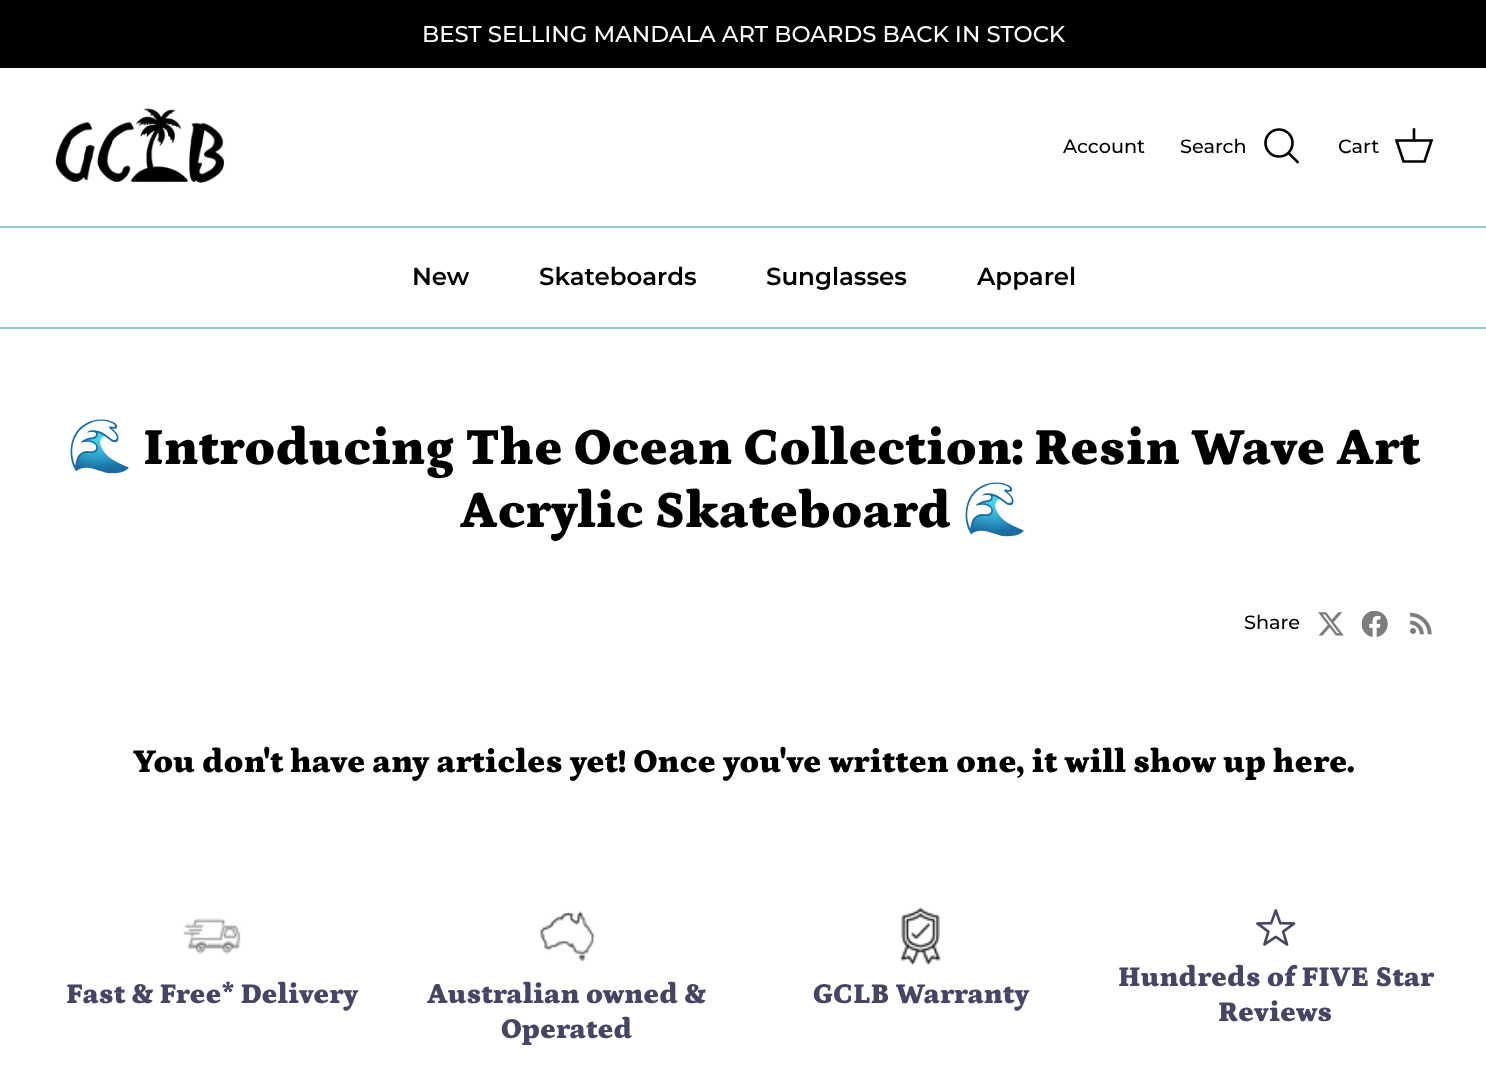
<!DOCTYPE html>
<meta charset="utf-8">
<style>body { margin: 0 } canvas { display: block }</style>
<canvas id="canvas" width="1486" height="1077"></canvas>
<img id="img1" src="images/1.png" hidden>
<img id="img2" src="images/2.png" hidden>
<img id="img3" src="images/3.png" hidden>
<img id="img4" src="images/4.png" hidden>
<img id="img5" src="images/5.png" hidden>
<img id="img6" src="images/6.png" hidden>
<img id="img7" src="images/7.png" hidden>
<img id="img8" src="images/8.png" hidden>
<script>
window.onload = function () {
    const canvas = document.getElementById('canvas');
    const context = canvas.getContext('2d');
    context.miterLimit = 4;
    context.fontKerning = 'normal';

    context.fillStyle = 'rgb(255, 255, 255)';
    context.fillRect(0, 0, 1486, 1077);
    context.fillStyle = 'rgb(0, 0, 0)';
    context.fillRect(0, 0, 1486, 68);
    context.fillStyle = 'rgb(146, 200, 200)';
    context.fillRect(0, 226, 1486, 2);
    context.drawImage(document.getElementById('img1'), 55, 108, 170, 75);
    context.beginPath();
    context.arc(1279, 143, 13.5, 0, 2 * Math.PI);
    context.strokeStyle = 'rgb(0, 0, 0)';
    context.lineWidth = 2.6;
    context.stroke();
    context.beginPath();
    context.moveTo(1289.5, 154);
    context.lineTo(1297.5, 162);
    context.lineCap = 'square';
    context.stroke();
    context.beginPath();
    context.moveTo(1396.5, 140.5);
    context.lineTo(1431.5, 140.5);
    context.lineTo(1424.5, 161.5);
    context.lineTo(1403.5, 161.5);
    context.closePath();
    context.lineCap = 'butt';
    context.stroke();
    context.beginPath();
    context.moveTo(1414, 140);
    context.lineTo(1414, 129.5);
    context.lineCap = 'square';
    context.stroke();
    context.fillRect(0, 327, 1486, 2);
    context.drawImage(document.getElementById('img2'), 1318, 612, 26, 24);
    context.drawImage(document.getElementById('img3'), 1362, 611, 26, 26);
    context.drawImage(document.getElementById('img4'), 1410, 612, 22, 23);
    context.drawImage(document.getElementById('img5'), 183, 918, 58, 37);
    context.drawImage(document.getElementById('img6'), 540, 911, 56, 51);
    context.drawImage(document.getElementById('img7'), 900, 907, 41, 58);
    context.drawImage(document.getElementById('img8'), 1256, 909, 40, 37);
    context.font = '500 22.75px Montserrat';
    context.fillStyle = 'rgb(255, 255, 255)';
    context.fillText('BEST SELLING MANDALA ART BOARDS BACK IN STOCK', 422, 42);
    context.font = '500 19.25px Montserrat';
    context.fillStyle = 'rgb(0, 0, 0)';
    context.fillText('Account', 1063, 153);
    context.fillText('Search', 1180, 153);
    context.fillText('Cart', 1338, 153);
    context.font = '600 24.5px Montserrat';
    context.fillText('New', 412, 285);
    context.fillText('Skateboards', 539, 285);
    context.fillText('Sunglasses', 766, 285);
    context.fillText('Apparel', 977, 285);
    context.font = 'bold 52.5px Noto Color Emoji';
    context.fillText('🌊', 67, 464);
    context.font = '900 52.5px Petrona';
    context.fillText('Introducing The Ocean Collection: Resin Wave Art', 143, 464);
    context.fillText('Acrylic Skateboard', 460, 527);
    context.font = 'bold 52.5px Noto Color Emoji';
    context.fillText('🌊', 962, 527);
    context.font = '500 19.25px Montserrat';
    context.fillText('Share', 1244, 629);
    context.font = '900 33.45px Petrona';
    context.fillText('You don\'t have any articles yet! Once you\'ve written one, it will show up here.', 133, 772);
    context.font = '900 29px Petrona';
    context.fillStyle = 'rgb(69, 69, 100)';
    context.fillText('Fast & Free* Delivery', 66, 1003);
    context.fillText('Australian owned &', 427, 1003);
    context.fillText('Operated', 501, 1038);
    context.fillText('GCLB Warranty', 813, 1003);
    context.fillText('Hundreds of FIVE Star', 1118, 986);
    context.fillText('Reviews', 1218, 1021);
};
</script>
